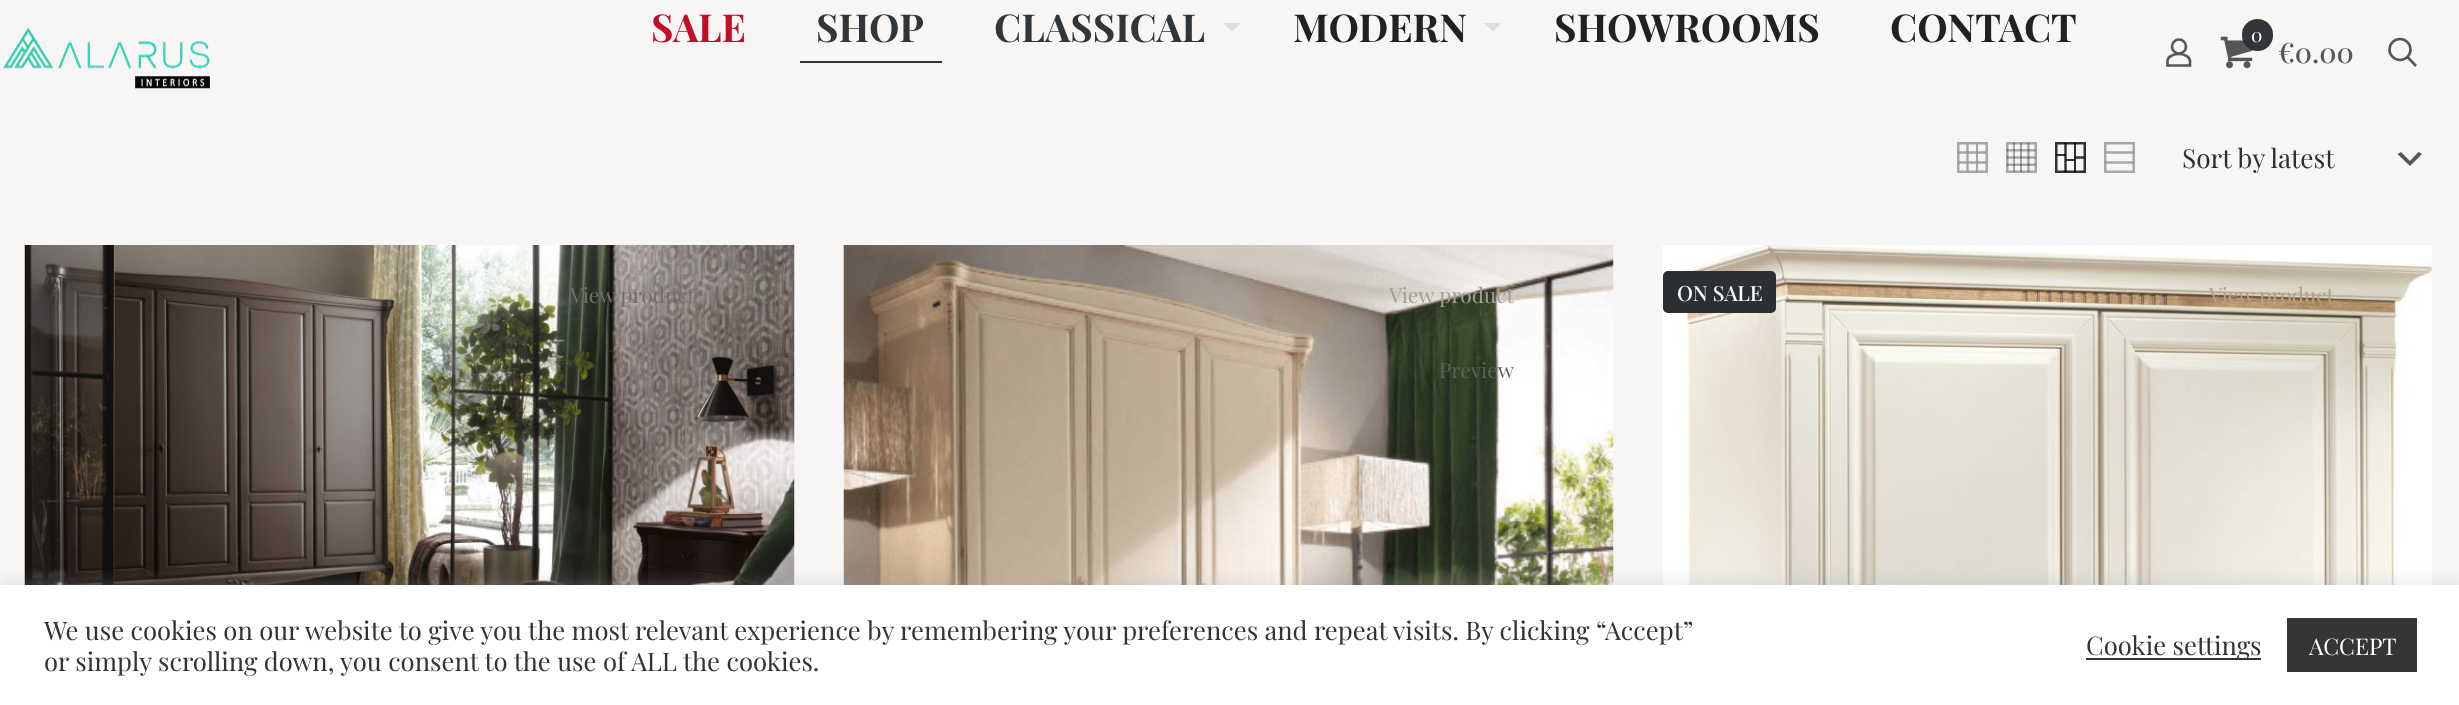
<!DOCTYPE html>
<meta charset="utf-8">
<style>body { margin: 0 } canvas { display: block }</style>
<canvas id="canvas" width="2459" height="705"></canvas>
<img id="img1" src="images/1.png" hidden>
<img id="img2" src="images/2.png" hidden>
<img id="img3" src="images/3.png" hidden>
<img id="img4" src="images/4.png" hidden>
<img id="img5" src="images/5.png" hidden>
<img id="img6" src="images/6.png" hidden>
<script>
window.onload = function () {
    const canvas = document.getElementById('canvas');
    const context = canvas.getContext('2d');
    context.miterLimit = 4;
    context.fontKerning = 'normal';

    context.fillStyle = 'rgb(247, 246, 244)';
    context.fillRect(0, 0, 2459, 705);
    context.drawImage(document.getElementById('img1'), 3, 27, 207, 62);
    context.fillStyle = 'rgb(49, 54, 59)';
    context.fillRect(800, 61, 142, 2);
    context.fillStyle = 'rgb(222, 222, 221)';
    context.beginPath();
    context.moveTo(1223, 23);
    context.lineTo(1241, 23);
    context.lineTo(1232, 31.5);
    context.closePath();
    context.fill();
    context.beginPath();
    context.moveTo(1484, 23);
    context.lineTo(1501.5, 23);
    context.lineTo(1493, 31.5);
    context.closePath();
    context.fill();
    context.beginPath();
    context.arc(2179, 46.5, 7, 0, 2 * Math.PI);
    context.strokeStyle = 'rgb(86, 86, 86)';
    context.lineWidth = 2.6;
    context.stroke();
    context.beginPath();
    context.moveTo(2190, 61.5);
    context.lineTo(2190, 65.5);
    context.lineTo(2167.5, 65.5);
    context.lineTo(2167.5, 60);
    context.bezierCurveTo(2170, 51.5, 2190, 52, 2190, 61.5);
    context.closePath();
    context.stroke();
    context.drawImage(document.getElementById('img2'), 2220, 36, 33, 33);
    context.fillStyle = 'rgba(43, 48, 53, 0.97)';
    context.beginPath();
    context.roundRect(2242, 19, 31, 32, 15.5);
    context.fill();
    context.beginPath();
    context.arc(2400, 49.5, 10.5, 0, 2 * Math.PI);
    context.stroke();
    context.beginPath();
    context.moveTo(2407.5, 57);
    context.lineTo(2416, 66);
    context.stroke();
    context.beginPath();
    context.moveTo(1967.5, 172);
    context.lineTo(1967.5, 143);
    context.strokeStyle = 'rgb(168, 168, 166)';
    context.lineWidth = 2.4;
    context.stroke();
    context.fillStyle = 'rgb(168, 168, 166)';
    context.fillRect(1976, 143, 2, 29);
    context.strokeStyle = 'rgba(148, 148, 146, 0.8)';
    context.lineWidth = 2.5;
    context.strokeRect(1958.25, 143.25, 28.5, 28.5);
    context.beginPath();
    context.moveTo(1958, 152.5);
    context.lineTo(1986.5, 152.5);
    context.moveTo(1958, 162.5);
    context.lineTo(1986.5, 162.5);
    context.lineWidth = 2.4;
    context.stroke();
    context.drawImage(document.getElementById('img3'), 2006, 142, 31, 31);
    context.fillStyle = 'rgb(49, 49, 49)';
    context.fillRect(2056, 154, 10, 2);
    context.fillRect(2066, 159, 9, 2);
    context.strokeStyle = 'rgba(0, 0, 0, 0.8)';
    context.lineWidth = 2.5;
    context.strokeRect(2056.25, 143.25, 28.5, 28.5);
    context.beginPath();
    context.moveTo(2075, 157.5);
    context.lineTo(2084.5, 157.5);
    context.moveTo(2065.5, 172);
    context.lineTo(2065.5, 143);
    context.lineWidth = 2.4;
    context.stroke();
    context.fillStyle = 'rgba(0, 0, 0, 0.8)';
    context.fillRect(2074, 143, 2, 29);
    context.strokeStyle = 'rgb(168, 168, 166)';
    context.lineWidth = 2.5;
    context.strokeRect(2105.25, 143.25, 28.5, 28.5);
    context.beginPath();
    context.moveTo(2105, 152.5);
    context.lineTo(2133.5, 152.5);
    context.moveTo(2105, 162.5);
    context.lineTo(2133.5, 162.5);
    context.strokeStyle = 'rgba(148, 148, 146, 0.8)';
    context.lineWidth = 2.4;
    context.stroke();
    context.fillStyle = 'rgb(85, 85, 85)';
    context.beginPath();
    context.moveTo(2401, 152);
    context.lineTo(2410, 161);
    context.lineTo(2418.5, 152);
    context.lineTo(2422, 154);
    context.lineTo(2410, 166);
    context.lineTo(2397.5, 154);
    context.closePath();
    context.fill();
    context.drawImage(document.getElementById('img4'), 24, 245, 771, 340);
    context.drawImage(document.getElementById('img5'), 843, 245, 771, 340);
    context.drawImage(document.getElementById('img6'), 1662, 245, 771, 340);
    context.fillStyle = 'rgb(43, 48, 53)';
    context.beginPath();
    context.roundRect(1663, 271, 113, 42, 5);
    context.fill();
    context.fillStyle = 'rgba(172, 171, 171, 0.3)';
    context.filter = 'blur(9px)';
    context.beginPath();
    context.rect(0, 583, 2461, 121);
    context.fill();
    context.filter = 'none';
    context.fillStyle = 'rgb(255, 255, 255)';
    context.fillRect(0, 585, 2459, 120);
    context.fillStyle = 'rgb(51, 51, 51)';
    context.fillRect(2086, 658, 175, 2);
    context.fillStyle = 'rgb(53, 53, 53)';
    context.fillRect(2287, 618, 130, 54);
    context.font = 'bold 38.5px Playfair Display';
    context.fillStyle = 'rgb(193, 13, 40)';
    context.fillText('SALE', 651, 42);
    context.fillStyle = 'rgb(49, 54, 59)';
    context.fillText('SHOP', 816, 42);
    context.fillText('CLASSICAL', 994, 42);
    context.fillStyle = 'rgb(33, 33, 33)';
    context.fillText('MODERN', 1293, 42);
    context.fillText('SHOWROOMS', 1554, 42);
    context.fillText('CONTACT', 1890, 42);
    context.font = '19px Playfair Display';
    context.fillStyle = 'rgb(255, 255, 255)';
    context.fillText('0', 2251, 42);
    context.font = '500 28px Playfair Display';
    context.fillStyle = 'rgb(86, 86, 86)';
    context.fillText('€0.00', 2278, 63);
    context.font = '26.25px Playfair Display';
    context.fillStyle = 'rgb(43, 48, 53)';
    context.fillText('Sort by latest', 2182, 168);
    context.font = '21px Playfair Display';
    context.fillStyle = 'rgb(115, 112, 106)';
    context.fillText('View product', 570, 303);
    context.fillStyle = 'rgb(159, 158, 147)';
    context.fillText('View product', 1389, 303);
    context.fillStyle = 'rgb(91, 100, 81)';
    context.fillText('Preview', 1439, 378);
    context.font = '500 21px Playfair Display';
    context.fillStyle = 'rgb(255, 255, 255)';
    context.fillText('ON SALE', 1677, 301);
    context.font = '21px Playfair Display';
    context.fillStyle = 'rgb(180, 161, 135)';
    context.fillText('View product', 2209, 303);
    context.font = '25.67px Playfair Display';
    context.fillStyle = 'rgb(51, 51, 51)';
    context.fillText('We use cookies on our website to give you the most relevant experience by remembering your preferences and repeat visits. By clicking “Accept”', 44, 640);
    context.fillText('or simply scrolling down, you consent to the use of ALL the cookies.', 44, 671);
    context.fillText('Cookie settings', 2086, 655);
    context.font = '23px Playfair Display';
    context.fillStyle = 'rgb(255, 255, 255)';
    context.fillText('ACCEPT', 2309, 655);
};
</script>
